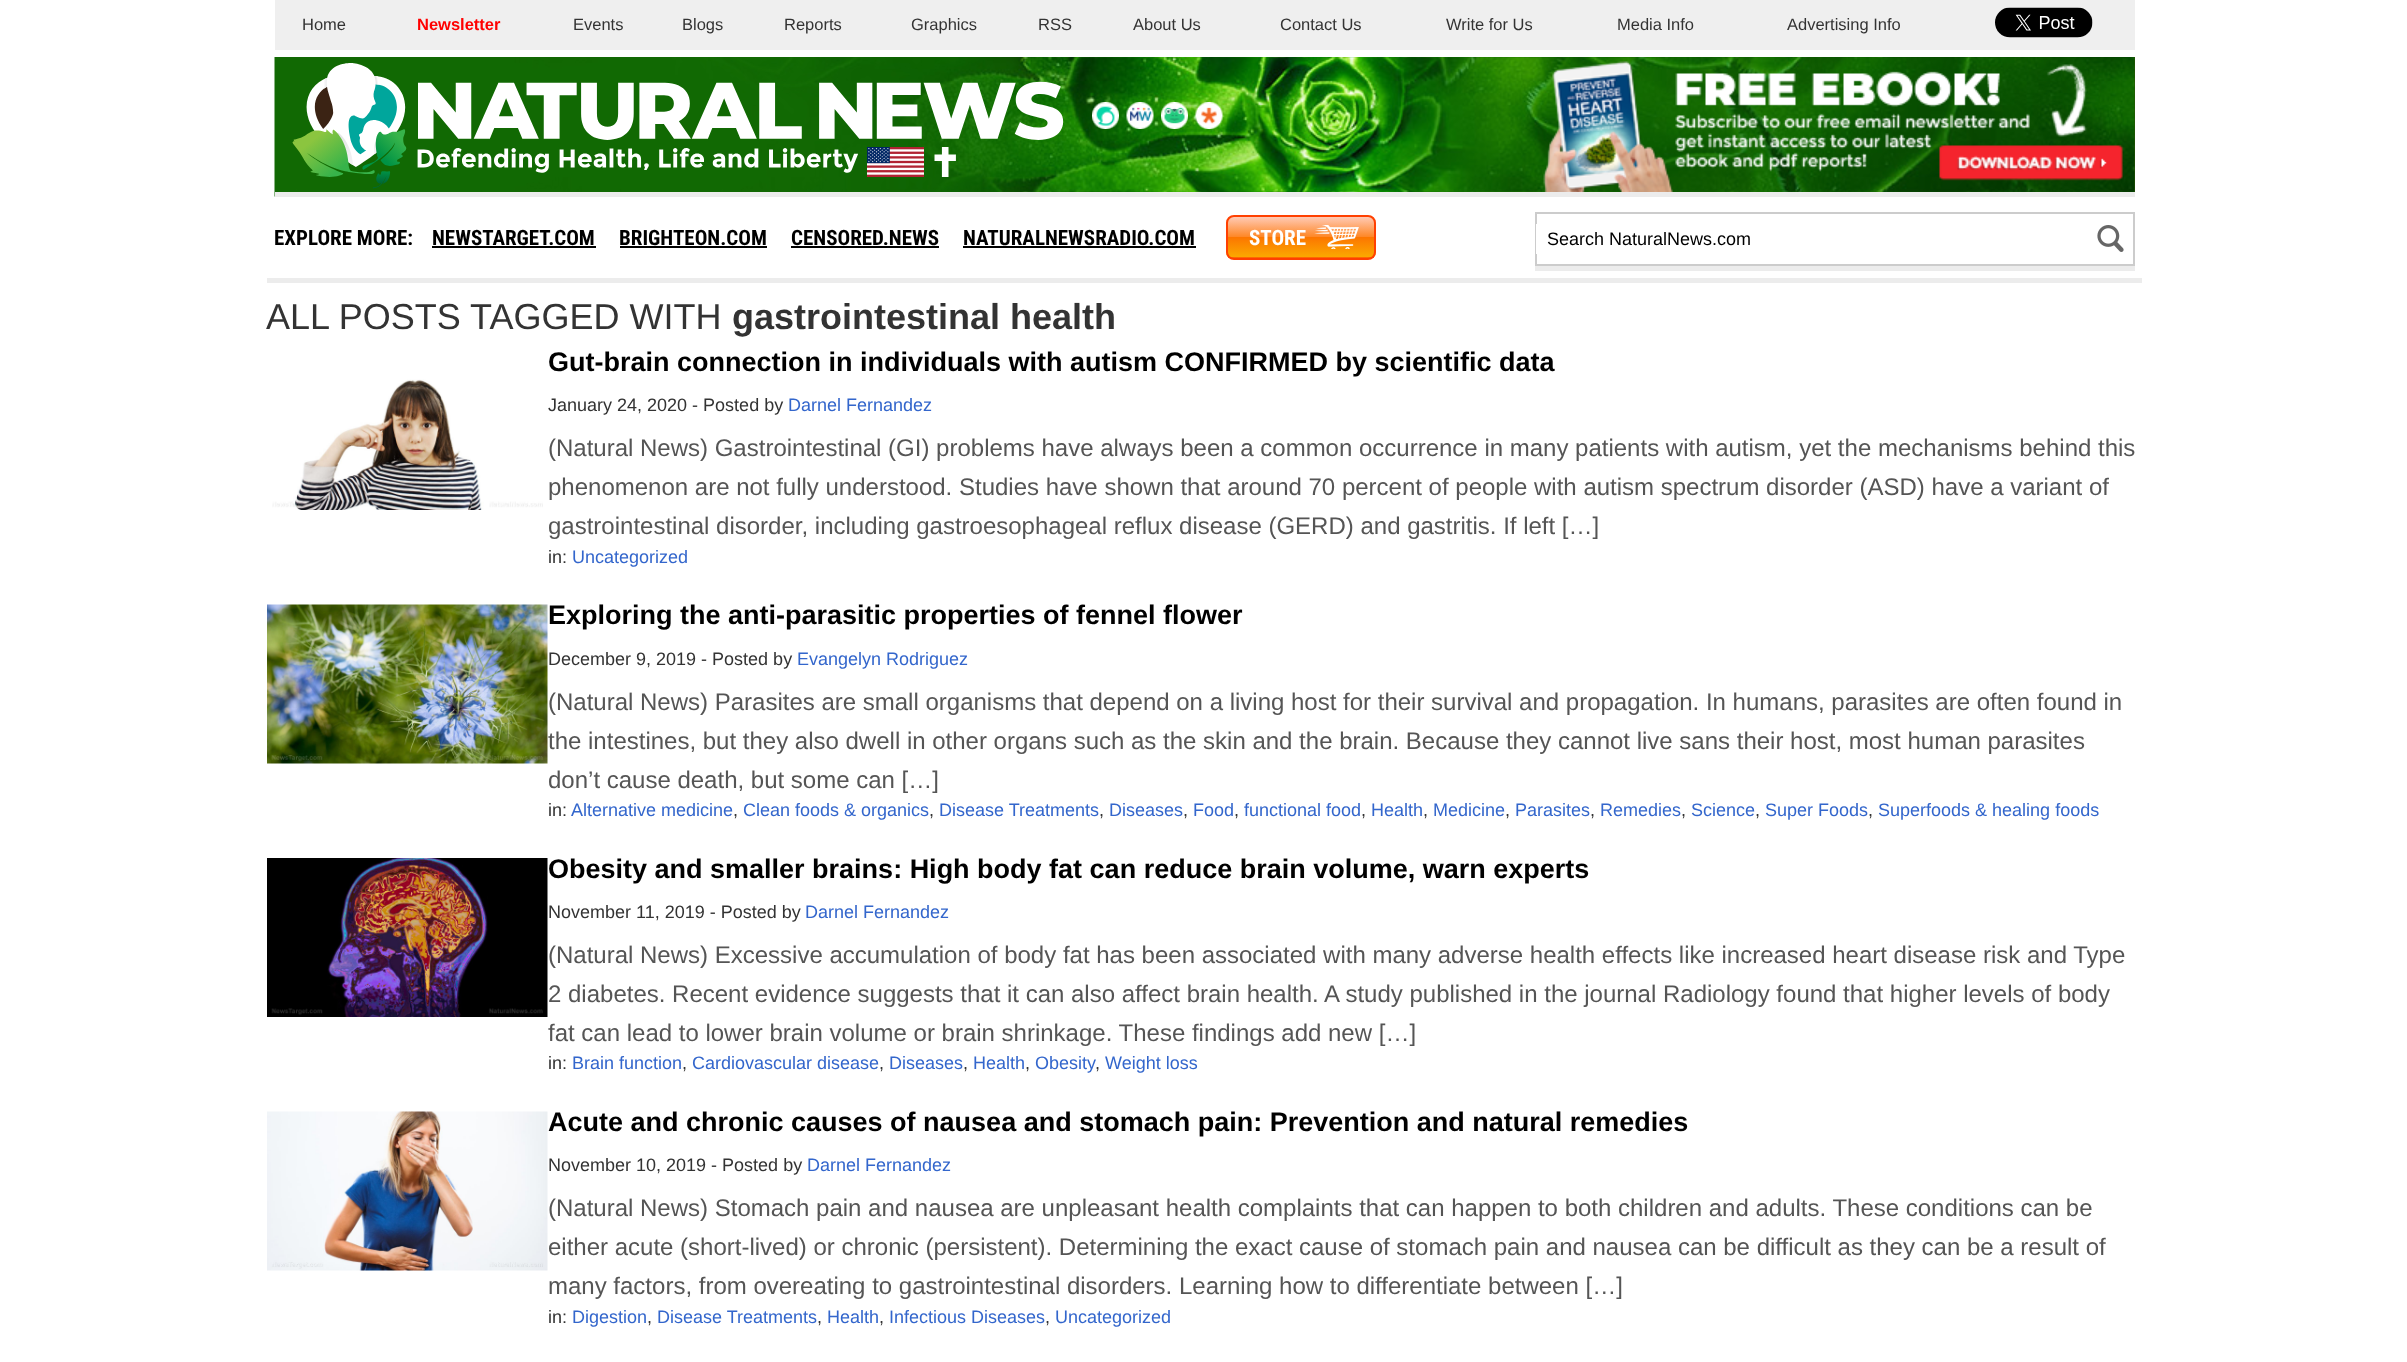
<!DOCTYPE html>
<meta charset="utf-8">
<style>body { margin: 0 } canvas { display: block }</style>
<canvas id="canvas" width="2407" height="1362"></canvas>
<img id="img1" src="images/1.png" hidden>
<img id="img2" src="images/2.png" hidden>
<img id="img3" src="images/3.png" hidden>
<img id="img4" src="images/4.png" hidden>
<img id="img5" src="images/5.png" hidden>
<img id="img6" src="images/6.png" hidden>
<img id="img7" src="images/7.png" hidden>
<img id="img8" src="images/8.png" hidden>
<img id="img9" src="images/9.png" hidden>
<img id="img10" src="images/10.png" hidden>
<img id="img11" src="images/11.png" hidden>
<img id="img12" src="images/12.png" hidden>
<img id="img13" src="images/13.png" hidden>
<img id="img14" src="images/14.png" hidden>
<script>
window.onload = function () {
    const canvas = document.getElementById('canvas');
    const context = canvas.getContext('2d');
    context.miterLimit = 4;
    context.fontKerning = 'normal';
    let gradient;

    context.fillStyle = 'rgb(255, 255, 255)';
    context.fillRect(0, 0, 2407, 1362);
    context.fillStyle = 'rgb(239, 239, 239)';
    context.fillRect(275, 0, 1860, 50);
    context.drawImage(document.getElementById('img1'), 1995, 7, 98, 31);
    context.fillStyle = 'rgb(41, 82, 0)';
    context.fillRect(2134, 57, 1, 135);
    context.drawImage(document.getElementById('img2'), 274, 57, 1861, 140);
    context.fillStyle = 'rgb(236, 236, 236)';
    context.fillRect(275, 192, 1860, 5);
    context.drawImage(document.getElementById('img3'), 292, 63, 772, 126);
    context.drawImage(document.getElementById('img4'), 1092, 102, 27, 27);
    context.drawImage(document.getElementById('img5'), 1126, 102, 28, 27);
    context.drawImage(document.getElementById('img6'), 1161, 102, 27, 27);
    context.drawImage(document.getElementById('img7'), 1195, 102, 28, 27);
    context.drawImage(document.getElementById('img8'), 1543, 61, 580, 131);
    context.fillRect(267, 278, 1875, 5);
    context.fillStyle = 'rgb(0, 0, 0)';
    context.fillRect(432, 246, 164, 2);
    context.fillRect(620, 246, 147, 2);
    context.fillRect(791, 246, 148, 2);
    context.fillRect(963, 246, 233, 2);
    context.save();
    context.beginPath();
    context.roundRect(1226, 215, 150, 45, 8);
    context.clip();
    gradient = context.createLinearGradient(1301, 216, 1301, 258);
    gradient.addColorStop(0, 'rgb(255, 205, 188)');
    gradient.addColorStop(0.49, 'rgb(254, 136, 40)');
    gradient.addColorStop(0.5, 'rgb(252, 117, 0)');
    gradient.addColorStop(0.97, 'rgb(251, 168, 0)');
    gradient.addColorStop(1, 'rgb(255, 64, 1)');
    context.fillStyle = gradient;
    context.fillRect(1226, 216, 150, 42);
    context.restore();
    context.beginPath();
    context.roundRect(1227, 216, 148, 43, 7);
    context.strokeStyle = 'rgb(255, 64, 1)';
    context.lineWidth = 2;
    context.stroke();
    context.drawImage(document.getElementById('img9'), 1314, 225, 45, 24);
    context.fillStyle = 'rgb(236, 236, 236)';
    context.fillRect(1535, 266, 600, 5);
    context.strokeStyle = 'rgb(204, 204, 204)';
    context.strokeRect(1536, 213, 598, 52);
    context.fillStyle = 'rgb(255, 255, 255)';
    context.fillRect(1536, 224, 1, 30);
    context.drawImage(document.getElementById('img10'), 2097, 225, 27, 27);
    context.drawImage(document.getElementById('img11'), 272, 379, 271, 131);
    context.drawImage(document.getElementById('img12'), 267, 604, 281, 160);
    context.drawImage(document.getElementById('img13'), 267, 858, 281, 159);
    context.drawImage(document.getElementById('img14'), 267, 1111, 281, 160);
    context.font = '16.5px Liberation Sans';
    context.fillStyle = 'rgb(51, 51, 51)';
    context.fillText('Home', 302, 30);
    context.font = 'bold 16.5px Liberation Sans';
    context.fillStyle = 'rgb(255, 0, 0)';
    context.fillText('Newsletter', 417, 30);
    context.font = '16.5px Liberation Sans';
    context.fillStyle = 'rgb(51, 51, 51)';
    context.fillText('Events', 573, 30);
    context.fillText('Blogs', 682, 30);
    context.fillText('Reports', 784, 30);
    context.fillText('Graphics', 911, 30);
    context.fillText('RSS', 1038, 30);
    context.fillText('About Us', 1133, 30);
    context.fillText('Contact Us', 1280, 30);
    context.fillText('Write for Us', 1446, 30);
    context.fillText('Media Info', 1617, 30);
    context.fillText('Advertising Info', 1787, 30);
    context.font = 'bold 21px Roboto Condensed';
    context.fillStyle = 'rgb(0, 0, 0)';
    context.fillText('EXPLORE MORE:', 274, 245);
    context.fillText('NEWSTARGET.COM', 432, 245);
    context.fillText('BRIGHTEON.COM', 619, 245);
    context.fillText('CENSORED.NEWS', 791, 245);
    context.fillText('NATURALNEWSRADIO.COM', 963, 245);
    context.fillStyle = 'rgb(255, 255, 255)';
    context.fillText('STORE', 1249, 245);
    context.font = '18px Liberation Sans';
    context.fillStyle = 'rgb(0, 0, 0)';
    context.fillText('Search NaturalNews.com', 1547, 245);
    context.font = '36px Liberation Sans';
    context.fillStyle = 'rgb(51, 51, 51)';
    context.fillText('ALL POSTS TAGGED WITH', 266, 329);
    context.font = 'bold 36px Liberation Sans';
    context.fillText('gastrointestinal health', 732, 329);
    context.font = 'bold 27px Liberation Sans';
    context.fillStyle = 'rgb(0, 0, 0)';
    context.fillText('Gut-brain connection in individuals with autism CONFIRMED by scientific data', 548, 371);
    context.font = '18px Liberation Sans';
    context.fillStyle = 'rgb(51, 51, 51)';
    context.fillText('January 24, 2020 - Posted by', 548, 411);
    context.fillStyle = 'rgb(51, 102, 204)';
    context.fillText('Darnel Fernandez', 788, 411);
    context.font = '24px Liberation Sans';
    context.fillStyle = 'rgb(85, 85, 85)';
    context.fillText('(Natural News) Gastrointestinal (GI) problems have always been a common occurrence in many patients with autism, yet the mechanisms behind this', 548, 456);
    context.fillText('phenomenon are not fully understood. Studies have shown that around 70 percent of people with autism spectrum disorder (ASD) have a variant of', 548, 495);
    context.fillText('gastrointestinal disorder, including gastroesophageal reflux disease (GERD) and gastritis. If left […]', 548, 534);
    context.font = '18px Liberation Sans';
    context.fillStyle = 'rgb(51, 51, 51)';
    context.fillText('in:', 548, 563);
    context.fillStyle = 'rgb(51, 102, 204)';
    context.fillText('Uncategorized', 572, 563);
    context.font = 'bold 27px Liberation Sans';
    context.fillStyle = 'rgb(0, 0, 0)';
    context.fillText('Exploring the anti-parasitic properties of fennel flower', 548, 624);
    context.font = '18px Liberation Sans';
    context.fillStyle = 'rgb(51, 51, 51)';
    context.fillText('December 9, 2019 - Posted by', 548, 665);
    context.fillStyle = 'rgb(51, 102, 204)';
    context.fillText('Evangelyn Rodriguez', 797, 665);
    context.font = '24px Liberation Sans';
    context.fillStyle = 'rgb(85, 85, 85)';
    context.fillText('(Natural News) Parasites are small organisms that depend on a living host for their survival and propagation. In humans, parasites are often found in', 548, 710);
    context.fillText('the intestines, but they also dwell in other organs such as the skin and the brain. Because they cannot live sans their host, most human parasites', 548, 749);
    context.fillText('don’t cause death, but some can […]', 548, 788);
    context.font = '18px Liberation Sans';
    context.fillStyle = 'rgb(51, 51, 51)';
    context.fillText('in:', 548, 816);
    context.fillStyle = 'rgb(51, 102, 204)';
    context.fillText('Alternative medicine', 571, 816);
    context.fillStyle = 'rgb(51, 51, 51)';
    context.fillText(',', 733, 816);
    context.fillStyle = 'rgb(51, 102, 204)';
    context.fillText('Clean foods & organics', 743, 816);
    context.fillStyle = 'rgb(51, 51, 51)';
    context.fillText(',', 929, 816);
    context.fillStyle = 'rgb(51, 102, 204)';
    context.fillText('Disease Treatments', 939, 816);
    context.fillStyle = 'rgb(51, 51, 51)';
    context.fillText(',', 1099, 816);
    context.fillStyle = 'rgb(51, 102, 204)';
    context.fillText('Diseases', 1109, 816);
    context.fillStyle = 'rgb(51, 51, 51)';
    context.fillText(',', 1183, 816);
    context.fillStyle = 'rgb(51, 102, 204)';
    context.fillText('Food', 1193, 816);
    context.fillStyle = 'rgb(51, 51, 51)';
    context.fillText(',', 1234, 816);
    context.fillStyle = 'rgb(51, 102, 204)';
    context.fillText('functional food', 1244, 816);
    context.fillStyle = 'rgb(51, 51, 51)';
    context.fillText(',', 1361, 816);
    context.fillStyle = 'rgb(51, 102, 204)';
    context.fillText('Health', 1371, 816);
    context.fillStyle = 'rgb(51, 51, 51)';
    context.fillText(',', 1423, 816);
    context.fillStyle = 'rgb(51, 102, 204)';
    context.fillText('Medicine', 1433, 816);
    context.fillStyle = 'rgb(51, 51, 51)';
    context.fillText(',', 1505, 816);
    context.fillStyle = 'rgb(51, 102, 204)';
    context.fillText('Parasites', 1515, 816);
    context.fillStyle = 'rgb(51, 51, 51)';
    context.fillText(',', 1590, 816);
    context.fillStyle = 'rgb(51, 102, 204)';
    context.fillText('Remedies', 1600, 816);
    context.fillStyle = 'rgb(51, 51, 51)';
    context.fillText(',', 1681, 816);
    context.fillStyle = 'rgb(51, 102, 204)';
    context.fillText('Science', 1691, 816);
    context.fillStyle = 'rgb(51, 51, 51)';
    context.fillText(',', 1755, 816);
    context.fillStyle = 'rgb(51, 102, 204)';
    context.fillText('Super Foods', 1765, 816);
    context.fillStyle = 'rgb(51, 51, 51)';
    context.fillText(',', 1868, 816);
    context.fillStyle = 'rgb(51, 102, 204)';
    context.fillText('Superfoods & healing foods', 1878, 816);
    context.font = 'bold 27px Liberation Sans';
    context.fillStyle = 'rgb(0, 0, 0)';
    context.fillText('Obesity and smaller brains: High body fat can reduce brain volume, warn experts', 548, 878);
    context.font = '18px Liberation Sans';
    context.fillStyle = 'rgb(51, 51, 51)';
    context.fillText('November 11, 2019 - Posted by', 548, 918);
    context.fillStyle = 'rgb(51, 102, 204)';
    context.fillText('Darnel Fernandez', 805, 918);
    context.font = '24px Liberation Sans';
    context.fillStyle = 'rgb(85, 85, 85)';
    context.fillText('(Natural News) Excessive accumulation of body fat has been associated with many adverse health effects like increased heart disease risk and Type', 548, 963);
    context.fillText('2 diabetes. Recent evidence suggests that it can also affect brain health. A study published in the journal Radiology found that higher levels of body', 548, 1002);
    context.fillText('fat can lead to lower brain volume or brain shrinkage. These findings add new […]', 548, 1041);
    context.font = '18px Liberation Sans';
    context.fillStyle = 'rgb(51, 51, 51)';
    context.fillText('in:', 548, 1069);
    context.fillStyle = 'rgb(51, 102, 204)';
    context.fillText('Brain function', 572, 1069);
    context.fillStyle = 'rgb(51, 51, 51)';
    context.fillText(',', 682, 1069);
    context.fillStyle = 'rgb(51, 102, 204)';
    context.fillText('Cardiovascular disease', 692, 1069);
    context.fillStyle = 'rgb(51, 51, 51)';
    context.fillText(',', 879, 1069);
    context.fillStyle = 'rgb(51, 102, 204)';
    context.fillText('Diseases', 889, 1069);
    context.fillStyle = 'rgb(51, 51, 51)';
    context.fillText(',', 963, 1069);
    context.fillStyle = 'rgb(51, 102, 204)';
    context.fillText('Health', 973, 1069);
    context.fillStyle = 'rgb(51, 51, 51)';
    context.fillText(',', 1025, 1069);
    context.fillStyle = 'rgb(51, 102, 204)';
    context.fillText('Obesity', 1035, 1069);
    context.fillStyle = 'rgb(51, 51, 51)';
    context.fillText(',', 1095, 1069);
    context.fillStyle = 'rgb(51, 102, 204)';
    context.fillText('Weight loss', 1105, 1069);
    context.font = 'bold 27px Liberation Sans';
    context.fillStyle = 'rgb(0, 0, 0)';
    context.fillText('Acute and chronic causes of nausea and stomach pain: Prevention and natural remedies', 548, 1131);
    context.font = '18px Liberation Sans';
    context.fillStyle = 'rgb(51, 51, 51)';
    context.fillText('November 10, 2019 - Posted by', 548, 1171);
    context.fillStyle = 'rgb(51, 102, 204)';
    context.fillText('Darnel Fernandez', 807, 1171);
    context.font = '24px Liberation Sans';
    context.fillStyle = 'rgb(85, 85, 85)';
    context.fillText('(Natural News) Stomach pain and nausea are unpleasant health complaints that can happen to both children and adults. These conditions can be', 548, 1216);
    context.fillText('either acute (short-lived) or chronic (persistent). Determining the exact cause of stomach pain and nausea can be difficult as they can be a result of', 548, 1255);
    context.fillText('many factors, from overeating to gastrointestinal disorders. Learning how to differentiate between […]', 548, 1294);
    context.font = '18px Liberation Sans';
    context.fillStyle = 'rgb(51, 51, 51)';
    context.fillText('in:', 548, 1323);
    context.fillStyle = 'rgb(51, 102, 204)';
    context.fillText('Digestion', 572, 1323);
    context.fillStyle = 'rgb(51, 51, 51)';
    context.fillText(',', 647, 1323);
    context.fillStyle = 'rgb(51, 102, 204)';
    context.fillText('Disease Treatments', 657, 1323);
    context.fillStyle = 'rgb(51, 51, 51)';
    context.fillText(',', 817, 1323);
    context.fillStyle = 'rgb(51, 102, 204)';
    context.fillText('Health', 827, 1323);
    context.fillStyle = 'rgb(51, 51, 51)';
    context.fillText(',', 879, 1323);
    context.fillStyle = 'rgb(51, 102, 204)';
    context.fillText('Infectious Diseases', 889, 1323);
    context.fillStyle = 'rgb(51, 51, 51)';
    context.fillText(',', 1045, 1323);
    context.fillStyle = 'rgb(51, 102, 204)';
    context.fillText('Uncategorized', 1055, 1323);
};
</script>
